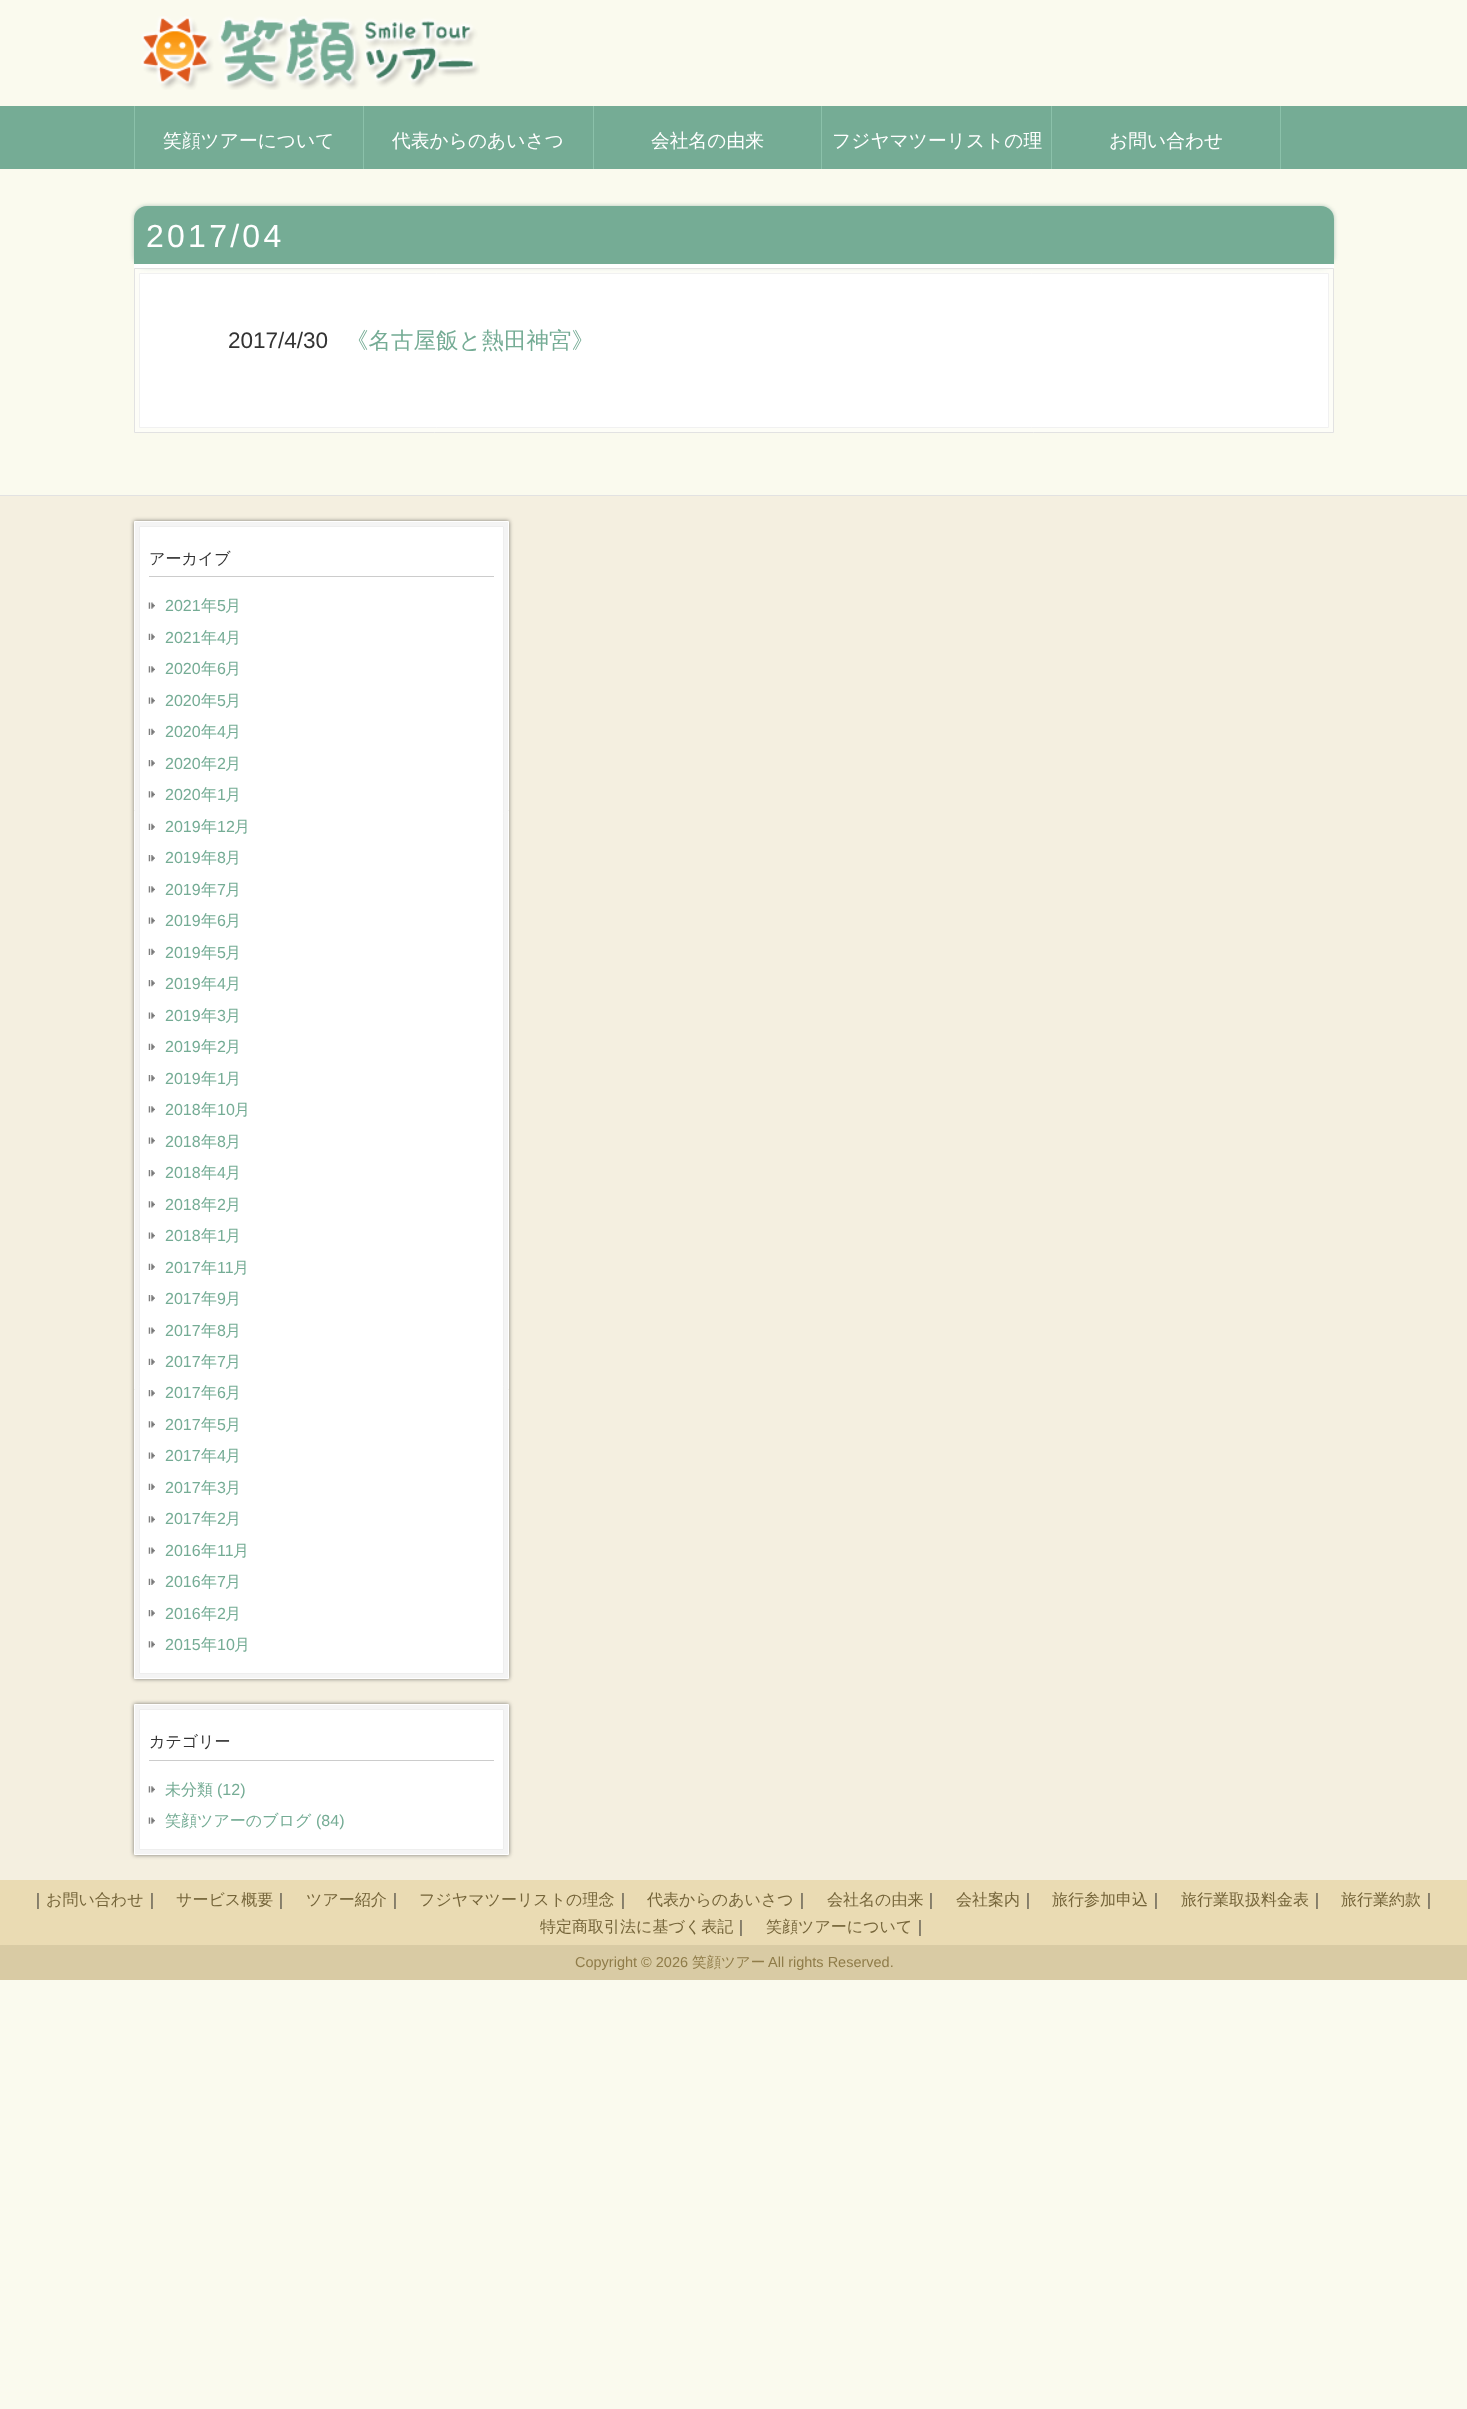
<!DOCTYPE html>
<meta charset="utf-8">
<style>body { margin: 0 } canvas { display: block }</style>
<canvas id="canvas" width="1467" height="2409"></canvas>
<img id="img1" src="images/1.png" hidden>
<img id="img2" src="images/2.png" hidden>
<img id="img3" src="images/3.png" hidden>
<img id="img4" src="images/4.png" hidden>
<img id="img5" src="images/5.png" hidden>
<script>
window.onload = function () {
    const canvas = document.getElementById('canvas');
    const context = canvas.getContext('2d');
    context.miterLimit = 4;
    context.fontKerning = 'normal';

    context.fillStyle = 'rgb(250, 250, 238)';
    context.fillRect(0, 0, 1467, 2409);
    context.drawImage(document.getElementById('img1'), 141, 16, 339, 74);
    context.fillStyle = 'rgb(117, 172, 149)';
    context.fillRect(0, 106, 1467, 63);
    context.fillStyle = 'rgb(139, 193, 170)';
    context.fillRect(363, 106, 1, 63);
    context.fillRect(134, 106, 1, 63);
    context.fillRect(593, 106, 1, 63);
    context.fillRect(821, 106, 1, 63);
    context.fillRect(1051, 106, 1, 63);
    context.fillRect(1280, 106, 1, 63);
    context.fillStyle = 'rgba(165, 192, 180, 0.9)';
    context.filter = 'blur(2px)';
    context.beginPath();
    context.roundRect(134, 206, 1200, 62, 13);
    context.fill();
    context.filter = 'none';
    context.fillStyle = 'rgb(117, 172, 149)';
    context.beginPath();
    context.roundRect(134, 206, 1200, 62, [13, 13, 0, 0]);
    context.fill();
    context.fillStyle = 'rgb(255, 255, 255)';
    context.fillRect(134, 264, 1200, 4);
    context.fillStyle = 'rgba(255, 255, 255, 0.5)';
    context.beginPath();
    context.rect(134.5, 268.5, 1199, 164);
    context.fill();
    context.strokeStyle = 'rgb(226, 226, 226)';
    context.stroke();
    context.fillStyle = 'rgb(255, 255, 255)';
    context.beginPath();
    context.rect(139.5, 273.5, 1189, 154);
    context.fill();
    context.strokeStyle = 'rgb(241, 241, 241)';
    context.stroke();
    context.fillStyle = 'rgb(244, 239, 224)';
    context.fillRect(0, 496, 1467, 1384);
    context.fillStyle = 'rgb(226, 226, 226)';
    context.fillRect(0, 495, 1467, 1);
    context.fillStyle = 'rgba(0, 0, 0, 0.5)';
    context.filter = 'blur(2px)';
    context.beginPath();
    context.rect(134, 521, 375, 1158);
    context.fill();
    context.filter = 'none';
    context.fillStyle = 'rgb(244, 244, 244)';
    context.beginPath();
    context.rect(134.5, 521.5, 374, 1157);
    context.fill();
    context.strokeStyle = 'rgb(255, 255, 255)';
    context.stroke();
    context.fillStyle = 'rgb(255, 255, 255)';
    context.beginPath();
    context.rect(139.5, 526.5, 364, 1147);
    context.fill();
    context.strokeStyle = 'rgb(238, 238, 238)';
    context.stroke();
    context.fillStyle = 'rgb(204, 204, 204)';
    context.fillRect(149, 576, 345, 1);
    context.drawImage(document.getElementById('img2'), 148, 602, 7, 7);
    context.drawImage(document.getElementById('img3'), 148, 633, 7, 7);
    context.drawImage(document.getElementById('img4'), 148, 666, 7, 7);
    context.drawImage(document.getElementById('img2'), 148, 697, 7, 7);
    context.drawImage(document.getElementById('img3'), 148, 728, 7, 7);
    context.drawImage(document.getElementById('img5'), 148, 760, 7, 7);
    context.drawImage(document.getElementById('img4'), 148, 791, 7, 7);
    context.drawImage(document.getElementById('img3'), 148, 823, 7, 7);
    context.drawImage(document.getElementById('img5'), 148, 855, 7, 7);
    context.drawImage(document.getElementById('img4'), 148, 886, 7, 7);
    context.drawImage(document.getElementById('img2'), 148, 917, 7, 7);
    context.drawImage(document.getElementById('img3'), 148, 948, 7, 7);
    context.drawImage(document.getElementById('img5'), 148, 980, 7, 7);
    context.drawImage(document.getElementById('img2'), 148, 1012, 7, 7);
    context.drawImage(document.getElementById('img3'), 148, 1043, 7, 7);
    context.drawImage(document.getElementById('img5'), 148, 1075, 7, 7);
    context.drawImage(document.getElementById('img4'), 148, 1106, 7, 7);
    context.drawImage(document.getElementById('img2'), 148, 1137, 7, 7);
    context.drawImage(document.getElementById('img5'), 148, 1170, 7, 7);
    context.drawImage(document.getElementById('img4'), 148, 1201, 7, 7);
    context.drawImage(document.getElementById('img2'), 148, 1232, 7, 7);
    context.drawImage(document.getElementById('img3'), 148, 1263, 7, 7);
    context.drawImage(document.getElementById('img5'), 148, 1295, 7, 7);
    context.drawImage(document.getElementById('img2'), 148, 1327, 7, 7);
    context.drawImage(document.getElementById('img3'), 148, 1358, 7, 7);
    context.drawImage(document.getElementById('img5'), 148, 1390, 7, 7);
    context.drawImage(document.getElementById('img4'), 148, 1421, 7, 7);
    context.drawImage(document.getElementById('img2'), 148, 1452, 7, 7);
    context.drawImage(document.getElementById('img3'), 148, 1483, 7, 7);
    context.drawImage(document.getElementById('img4'), 148, 1516, 7, 7);
    context.drawImage(document.getElementById('img2'), 148, 1547, 7, 7);
    context.drawImage(document.getElementById('img3'), 148, 1578, 7, 7);
    context.drawImage(document.getElementById('img5'), 148, 1610, 7, 7);
    context.drawImage(document.getElementById('img4'), 148, 1641, 7, 7);
    context.fillStyle = 'rgba(0, 0, 0, 0.5)';
    context.filter = 'blur(2px)';
    context.beginPath();
    context.rect(134, 1704, 375, 151);
    context.fill();
    context.filter = 'none';
    context.fillStyle = 'rgb(244, 244, 244)';
    context.beginPath();
    context.rect(134.5, 1704.5, 374, 150);
    context.fill();
    context.strokeStyle = 'rgb(255, 255, 255)';
    context.stroke();
    context.fillStyle = 'rgb(255, 255, 255)';
    context.beginPath();
    context.rect(139.5, 1709.5, 364, 140);
    context.fill();
    context.strokeStyle = 'rgb(238, 238, 238)';
    context.stroke();
    context.fillStyle = 'rgb(204, 204, 204)';
    context.fillRect(149, 1760, 345, 1);
    context.drawImage(document.getElementById('img4'), 148, 1786, 7, 7);
    context.drawImage(document.getElementById('img2'), 148, 1817, 7, 7);
    context.fillStyle = 'rgb(234, 219, 179)';
    context.fillRect(0, 1880, 1467, 65);
    context.fillStyle = 'rgb(217, 203, 164)';
    context.fillRect(0, 1945, 1467, 35);
    context.font = '500 18.75px WenQuanYi Zen Hei';
    context.fillStyle = 'rgb(255, 255, 255)';
    context.fillText('笑顔ツアーについて', 163, 147);
    context.fillText('代表からのあいさつ', 392, 147);
    context.fillText('会社名の由来', 651, 147);
    context.fillText('フジヤマツーリストの理', 832, 147);
    context.fillText('お問い合わせ', 1109, 147);
    context.letterSpacing = '3.25px';
    context.font = '32px Liberation Sans';
    context.fillText('2017/04', 146, 247);
    context.letterSpacing = '0px';
    context.font = '22.5px Liberation Sans';
    context.fillStyle = 'rgb(51, 51, 51)';
    context.fillText('2017/4/30', 228, 348);
    context.font = '500 22.5px WenQuanYi Zen Hei';
    context.fillStyle = 'rgb(117, 172, 149)';
    context.fillText('《名古屋飯と熱田神宮》', 346, 348);
    context.font = '500 16px WenQuanYi Zen Hei';
    context.fillStyle = 'rgb(51, 51, 51)';
    context.fillText('アーカイブ', 149, 564);
    context.font = '16px Liberation Sans';
    context.fillStyle = 'rgb(117, 172, 149)';
    context.fillText('2021', 165, 611);
    context.font = '500 16px WenQuanYi Zen Hei';
    context.fillText('年', 201, 611);
    context.font = '16px Liberation Sans';
    context.fillText('5', 217, 611);
    context.font = '500 16px WenQuanYi Zen Hei';
    context.fillText('月', 225, 611);
    context.font = '16px Liberation Sans';
    context.fillText('2021', 165, 643);
    context.font = '500 16px WenQuanYi Zen Hei';
    context.fillText('年', 201, 643);
    context.font = '16px Liberation Sans';
    context.fillText('4', 217, 643);
    context.font = '500 16px WenQuanYi Zen Hei';
    context.fillText('月', 225, 643);
    context.font = '16px Liberation Sans';
    context.fillText('2020', 165, 674);
    context.font = '500 16px WenQuanYi Zen Hei';
    context.fillText('年', 201, 674);
    context.font = '16px Liberation Sans';
    context.fillText('6', 217, 674);
    context.font = '500 16px WenQuanYi Zen Hei';
    context.fillText('月', 225, 674);
    context.font = '16px Liberation Sans';
    context.fillText('2020', 165, 706);
    context.font = '500 16px WenQuanYi Zen Hei';
    context.fillText('年', 201, 706);
    context.font = '16px Liberation Sans';
    context.fillText('5', 217, 706);
    context.font = '500 16px WenQuanYi Zen Hei';
    context.fillText('月', 225, 706);
    context.font = '16px Liberation Sans';
    context.fillText('2020', 165, 737);
    context.font = '500 16px WenQuanYi Zen Hei';
    context.fillText('年', 201, 737);
    context.font = '16px Liberation Sans';
    context.fillText('4', 217, 737);
    context.font = '500 16px WenQuanYi Zen Hei';
    context.fillText('月', 225, 737);
    context.font = '16px Liberation Sans';
    context.fillText('2020', 165, 769);
    context.font = '500 16px WenQuanYi Zen Hei';
    context.fillText('年', 201, 769);
    context.font = '16px Liberation Sans';
    context.fillText('2', 217, 769);
    context.font = '500 16px WenQuanYi Zen Hei';
    context.fillText('月', 225, 769);
    context.font = '16px Liberation Sans';
    context.fillText('2020', 165, 800);
    context.font = '500 16px WenQuanYi Zen Hei';
    context.fillText('年', 201, 800);
    context.font = '16px Liberation Sans';
    context.fillText('1', 217, 800);
    context.font = '500 16px WenQuanYi Zen Hei';
    context.fillText('月', 225, 800);
    context.font = '16px Liberation Sans';
    context.fillText('2019', 165, 832);
    context.font = '500 16px WenQuanYi Zen Hei';
    context.fillText('年', 201, 832);
    context.font = '16px Liberation Sans';
    context.fillText('12', 217, 832);
    context.font = '500 16px WenQuanYi Zen Hei';
    context.fillText('月', 234, 832);
    context.font = '16px Liberation Sans';
    context.fillText('2019', 165, 863);
    context.font = '500 16px WenQuanYi Zen Hei';
    context.fillText('年', 201, 863);
    context.font = '16px Liberation Sans';
    context.fillText('8', 217, 863);
    context.font = '500 16px WenQuanYi Zen Hei';
    context.fillText('月', 225, 863);
    context.font = '16px Liberation Sans';
    context.fillText('2019', 165, 895);
    context.font = '500 16px WenQuanYi Zen Hei';
    context.fillText('年', 201, 895);
    context.font = '16px Liberation Sans';
    context.fillText('7', 217, 895);
    context.font = '500 16px WenQuanYi Zen Hei';
    context.fillText('月', 225, 895);
    context.font = '16px Liberation Sans';
    context.fillText('2019', 165, 926);
    context.font = '500 16px WenQuanYi Zen Hei';
    context.fillText('年', 201, 926);
    context.font = '16px Liberation Sans';
    context.fillText('6', 217, 926);
    context.font = '500 16px WenQuanYi Zen Hei';
    context.fillText('月', 225, 926);
    context.font = '16px Liberation Sans';
    context.fillText('2019', 165, 958);
    context.font = '500 16px WenQuanYi Zen Hei';
    context.fillText('年', 201, 958);
    context.font = '16px Liberation Sans';
    context.fillText('5', 217, 958);
    context.font = '500 16px WenQuanYi Zen Hei';
    context.fillText('月', 225, 958);
    context.font = '16px Liberation Sans';
    context.fillText('2019', 165, 989);
    context.font = '500 16px WenQuanYi Zen Hei';
    context.fillText('年', 201, 989);
    context.font = '16px Liberation Sans';
    context.fillText('4', 217, 989);
    context.font = '500 16px WenQuanYi Zen Hei';
    context.fillText('月', 225, 989);
    context.font = '16px Liberation Sans';
    context.fillText('2019', 165, 1021);
    context.font = '500 16px WenQuanYi Zen Hei';
    context.fillText('年', 201, 1021);
    context.font = '16px Liberation Sans';
    context.fillText('3', 217, 1021);
    context.font = '500 16px WenQuanYi Zen Hei';
    context.fillText('月', 225, 1021);
    context.font = '16px Liberation Sans';
    context.fillText('2019', 165, 1052);
    context.font = '500 16px WenQuanYi Zen Hei';
    context.fillText('年', 201, 1052);
    context.font = '16px Liberation Sans';
    context.fillText('2', 217, 1052);
    context.font = '500 16px WenQuanYi Zen Hei';
    context.fillText('月', 225, 1052);
    context.font = '16px Liberation Sans';
    context.fillText('2019', 165, 1084);
    context.font = '500 16px WenQuanYi Zen Hei';
    context.fillText('年', 201, 1084);
    context.font = '16px Liberation Sans';
    context.fillText('1', 217, 1084);
    context.font = '500 16px WenQuanYi Zen Hei';
    context.fillText('月', 225, 1084);
    context.font = '16px Liberation Sans';
    context.fillText('2018', 165, 1115);
    context.font = '500 16px WenQuanYi Zen Hei';
    context.fillText('年', 201, 1115);
    context.font = '16px Liberation Sans';
    context.fillText('10', 217, 1115);
    context.font = '500 16px WenQuanYi Zen Hei';
    context.fillText('月', 234, 1115);
    context.font = '16px Liberation Sans';
    context.fillText('2018', 165, 1147);
    context.font = '500 16px WenQuanYi Zen Hei';
    context.fillText('年', 201, 1147);
    context.font = '16px Liberation Sans';
    context.fillText('8', 217, 1147);
    context.font = '500 16px WenQuanYi Zen Hei';
    context.fillText('月', 225, 1147);
    context.font = '16px Liberation Sans';
    context.fillText('2018', 165, 1178);
    context.font = '500 16px WenQuanYi Zen Hei';
    context.fillText('年', 201, 1178);
    context.font = '16px Liberation Sans';
    context.fillText('4', 217, 1178);
    context.font = '500 16px WenQuanYi Zen Hei';
    context.fillText('月', 225, 1178);
    context.font = '16px Liberation Sans';
    context.fillText('2018', 165, 1210);
    context.font = '500 16px WenQuanYi Zen Hei';
    context.fillText('年', 201, 1210);
    context.font = '16px Liberation Sans';
    context.fillText('2', 217, 1210);
    context.font = '500 16px WenQuanYi Zen Hei';
    context.fillText('月', 225, 1210);
    context.font = '16px Liberation Sans';
    context.fillText('2018', 165, 1241);
    context.font = '500 16px WenQuanYi Zen Hei';
    context.fillText('年', 201, 1241);
    context.font = '16px Liberation Sans';
    context.fillText('1', 217, 1241);
    context.font = '500 16px WenQuanYi Zen Hei';
    context.fillText('月', 225, 1241);
    context.font = '16px Liberation Sans';
    context.fillText('2017', 165, 1273);
    context.font = '500 16px WenQuanYi Zen Hei';
    context.fillText('年', 201, 1273);
    context.font = '16px Liberation Sans';
    context.fillText('11', 217, 1273);
    context.font = '500 16px WenQuanYi Zen Hei';
    context.fillText('月', 233, 1273);
    context.font = '16px Liberation Sans';
    context.fillText('2017', 165, 1304);
    context.font = '500 16px WenQuanYi Zen Hei';
    context.fillText('年', 201, 1304);
    context.font = '16px Liberation Sans';
    context.fillText('9', 217, 1304);
    context.font = '500 16px WenQuanYi Zen Hei';
    context.fillText('月', 225, 1304);
    context.font = '16px Liberation Sans';
    context.fillText('2017', 165, 1336);
    context.font = '500 16px WenQuanYi Zen Hei';
    context.fillText('年', 201, 1336);
    context.font = '16px Liberation Sans';
    context.fillText('8', 217, 1336);
    context.font = '500 16px WenQuanYi Zen Hei';
    context.fillText('月', 225, 1336);
    context.font = '16px Liberation Sans';
    context.fillText('2017', 165, 1367);
    context.font = '500 16px WenQuanYi Zen Hei';
    context.fillText('年', 201, 1367);
    context.font = '16px Liberation Sans';
    context.fillText('7', 217, 1367);
    context.font = '500 16px WenQuanYi Zen Hei';
    context.fillText('月', 225, 1367);
    context.font = '16px Liberation Sans';
    context.fillText('2017', 165, 1398);
    context.font = '500 16px WenQuanYi Zen Hei';
    context.fillText('年', 201, 1398);
    context.font = '16px Liberation Sans';
    context.fillText('6', 217, 1398);
    context.font = '500 16px WenQuanYi Zen Hei';
    context.fillText('月', 225, 1398);
    context.font = '16px Liberation Sans';
    context.fillText('2017', 165, 1430);
    context.font = '500 16px WenQuanYi Zen Hei';
    context.fillText('年', 201, 1430);
    context.font = '16px Liberation Sans';
    context.fillText('5', 217, 1430);
    context.font = '500 16px WenQuanYi Zen Hei';
    context.fillText('月', 225, 1430);
    context.font = '16px Liberation Sans';
    context.fillText('2017', 165, 1461);
    context.font = '500 16px WenQuanYi Zen Hei';
    context.fillText('年', 201, 1461);
    context.font = '16px Liberation Sans';
    context.fillText('4', 217, 1461);
    context.font = '500 16px WenQuanYi Zen Hei';
    context.fillText('月', 225, 1461);
    context.font = '16px Liberation Sans';
    context.fillText('2017', 165, 1493);
    context.font = '500 16px WenQuanYi Zen Hei';
    context.fillText('年', 201, 1493);
    context.font = '16px Liberation Sans';
    context.fillText('3', 217, 1493);
    context.font = '500 16px WenQuanYi Zen Hei';
    context.fillText('月', 225, 1493);
    context.font = '16px Liberation Sans';
    context.fillText('2017', 165, 1524);
    context.font = '500 16px WenQuanYi Zen Hei';
    context.fillText('年', 201, 1524);
    context.font = '16px Liberation Sans';
    context.fillText('2', 217, 1524);
    context.font = '500 16px WenQuanYi Zen Hei';
    context.fillText('月', 225, 1524);
    context.font = '16px Liberation Sans';
    context.fillText('2016', 165, 1556);
    context.font = '500 16px WenQuanYi Zen Hei';
    context.fillText('年', 201, 1556);
    context.font = '16px Liberation Sans';
    context.fillText('11', 217, 1556);
    context.font = '500 16px WenQuanYi Zen Hei';
    context.fillText('月', 233, 1556);
    context.font = '16px Liberation Sans';
    context.fillText('2016', 165, 1587);
    context.font = '500 16px WenQuanYi Zen Hei';
    context.fillText('年', 201, 1587);
    context.font = '16px Liberation Sans';
    context.fillText('7', 217, 1587);
    context.font = '500 16px WenQuanYi Zen Hei';
    context.fillText('月', 225, 1587);
    context.font = '16px Liberation Sans';
    context.fillText('2016', 165, 1619);
    context.font = '500 16px WenQuanYi Zen Hei';
    context.fillText('年', 201, 1619);
    context.font = '16px Liberation Sans';
    context.fillText('2', 217, 1619);
    context.font = '500 16px WenQuanYi Zen Hei';
    context.fillText('月', 225, 1619);
    context.font = '16px Liberation Sans';
    context.fillText('2015', 165, 1650);
    context.font = '500 16px WenQuanYi Zen Hei';
    context.fillText('年', 201, 1650);
    context.font = '16px Liberation Sans';
    context.fillText('10', 217, 1650);
    context.font = '500 16px WenQuanYi Zen Hei';
    context.fillText('月', 234, 1650);
    context.fillStyle = 'rgb(51, 51, 51)';
    context.fillText('カテゴリー', 149, 1747);
    context.fillStyle = 'rgb(117, 172, 149)';
    context.fillText('未分類', 165, 1795);
    context.font = '16px Liberation Sans';
    context.fillText('(12)', 217, 1795);
    context.font = '500 16px WenQuanYi Zen Hei';
    context.fillText('笑顔ツアーのブログ', 165, 1826);
    context.font = '16px Liberation Sans';
    context.fillText('(84)', 316, 1826);
    context.font = '500 16px WenQuanYi Zen Hei';
    context.fillStyle = 'rgb(37, 37, 37)';
    context.fillText('｜', 30, 1905);
    context.fillStyle = 'rgb(116, 100, 57)';
    context.fillText('お問い合わせ', 46, 1905);
    context.fillStyle = 'rgb(37, 37, 37)';
    context.fillText('｜', 144, 1905);
    context.fillStyle = 'rgb(116, 100, 57)';
    context.fillText('サービス概要', 176, 1905);
    context.fillStyle = 'rgb(37, 37, 37)';
    context.fillText('｜', 273, 1905);
    context.fillStyle = 'rgb(116, 100, 57)';
    context.fillText('ツアー紹介', 306, 1905);
    context.fillStyle = 'rgb(37, 37, 37)';
    context.fillText('｜', 387, 1905);
    context.fillStyle = 'rgb(116, 100, 57)';
    context.fillText('フジヤマツーリストの理念', 419, 1905);
    context.fillStyle = 'rgb(37, 37, 37)';
    context.fillText('｜', 615, 1905);
    context.fillStyle = 'rgb(116, 100, 57)';
    context.fillText('代表からのあいさつ', 647, 1905);
    context.fillStyle = 'rgb(37, 37, 37)';
    context.fillText('｜', 794, 1905);
    context.fillStyle = 'rgb(116, 100, 57)';
    context.fillText('会社名の由来', 827, 1905);
    context.fillStyle = 'rgb(37, 37, 37)';
    context.fillText('｜', 923, 1905);
    context.fillStyle = 'rgb(116, 100, 57)';
    context.fillText('会社案内', 956, 1905);
    context.fillStyle = 'rgb(37, 37, 37)';
    context.fillText('｜', 1020, 1905);
    context.fillStyle = 'rgb(116, 100, 57)';
    context.fillText('旅行参加申込', 1052, 1905);
    context.fillStyle = 'rgb(37, 37, 37)';
    context.fillText('｜', 1148, 1905);
    context.fillStyle = 'rgb(116, 100, 57)';
    context.fillText('旅行業取扱料金表', 1181, 1905);
    context.fillStyle = 'rgb(37, 37, 37)';
    context.fillText('｜', 1309, 1905);
    context.fillStyle = 'rgb(116, 100, 57)';
    context.fillText('旅行業約款', 1341, 1905);
    context.fillStyle = 'rgb(37, 37, 37)';
    context.fillText('｜', 1421, 1905);
    context.fillStyle = 'rgb(116, 100, 57)';
    context.fillText('特定商取引法に基づく表記', 540, 1932);
    context.fillStyle = 'rgb(37, 37, 37)';
    context.fillText('｜', 733, 1932);
    context.fillStyle = 'rgb(116, 100, 57)';
    context.fillText('笑顔ツアーについて', 766, 1932);
    context.fillStyle = 'rgb(37, 37, 37)';
    context.fillText('｜', 912, 1932);
    context.font = '14.5px Liberation Sans';
    context.fillStyle = 'rgb(143, 124, 73)';
    context.fillText('Copyright © 2026', 575, 1967);
    context.font = '500 14.5px WenQuanYi Zen Hei';
    context.fillText('笑顔ツアー', 692, 1967);
    context.font = '14.5px Liberation Sans';
    context.fillText('All rights Reserved.', 768, 1967);
};
</script>
